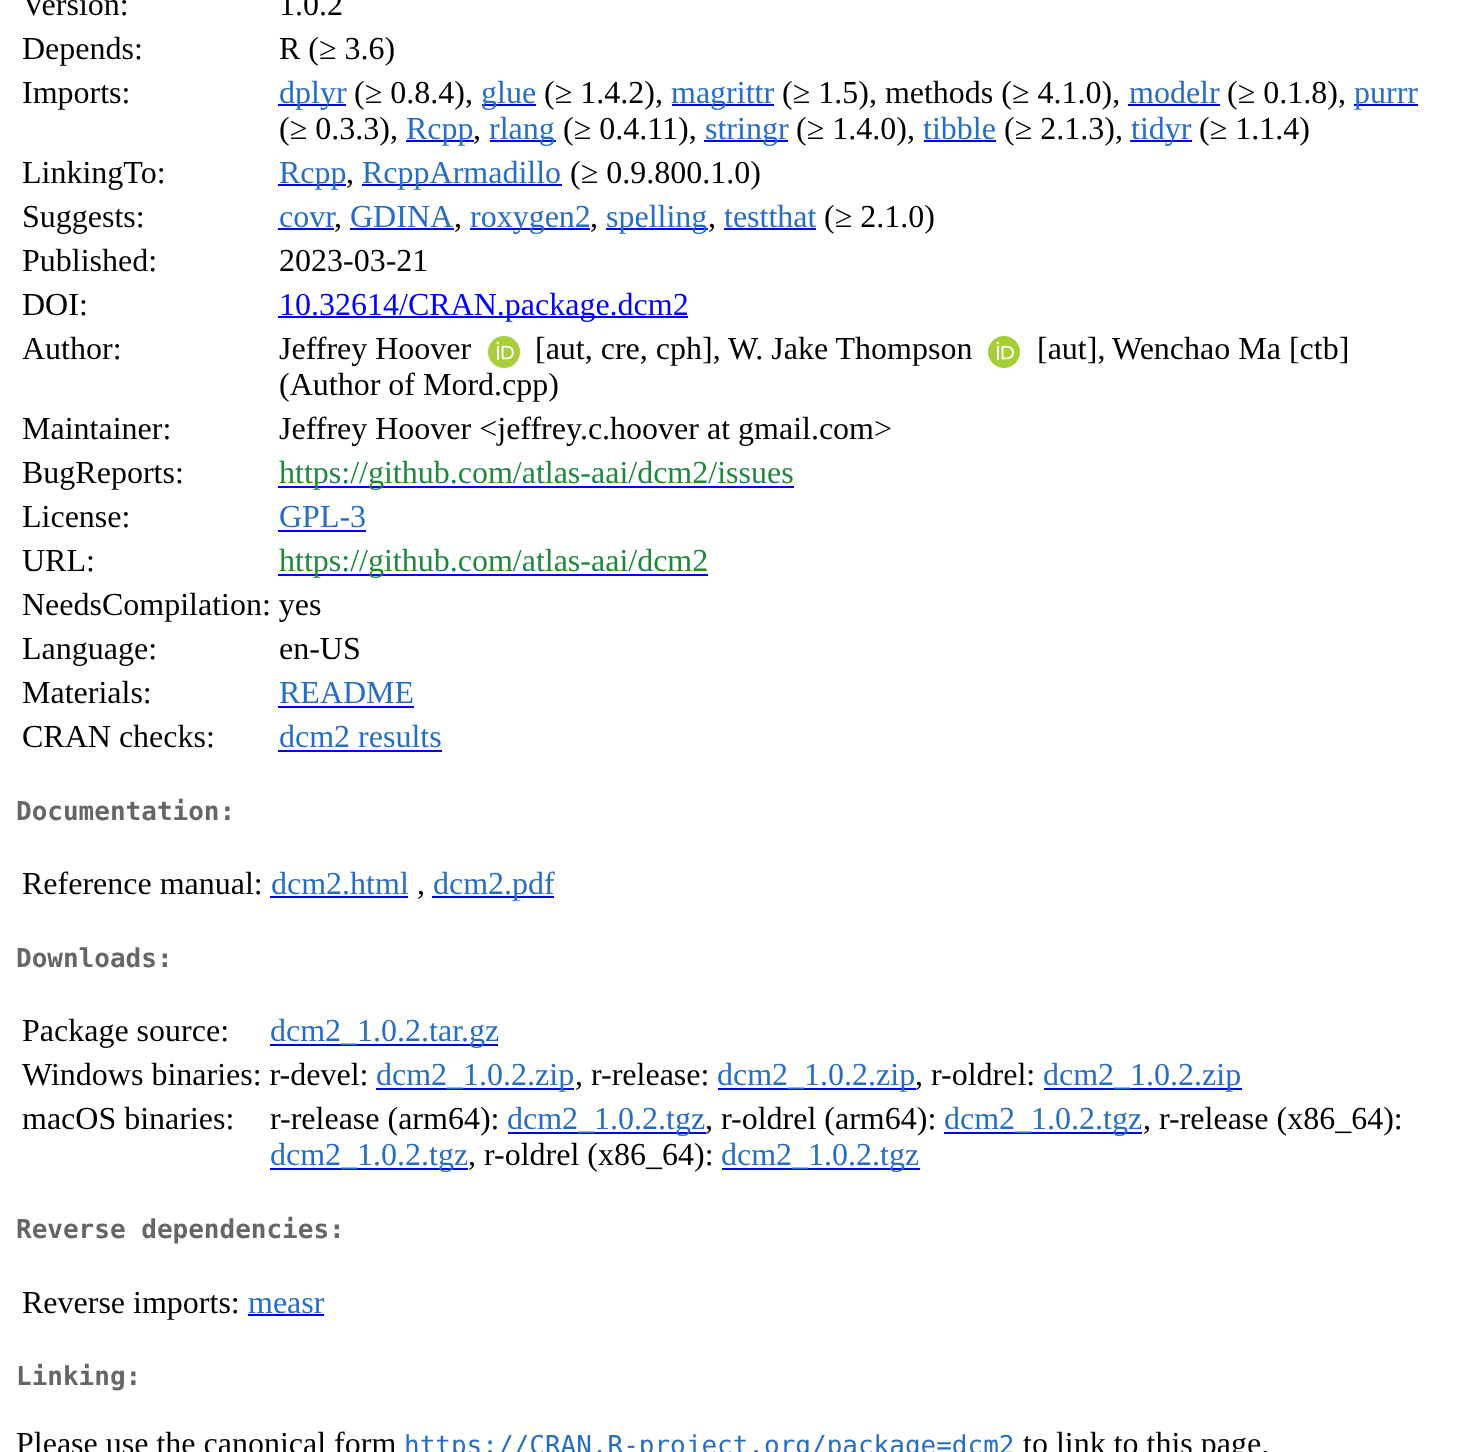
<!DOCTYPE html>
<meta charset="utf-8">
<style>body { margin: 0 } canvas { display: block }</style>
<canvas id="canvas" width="1458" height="1452"></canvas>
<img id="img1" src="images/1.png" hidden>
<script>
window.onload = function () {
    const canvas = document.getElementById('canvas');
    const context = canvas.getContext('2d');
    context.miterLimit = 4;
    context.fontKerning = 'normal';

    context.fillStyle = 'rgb(255, 255, 255)';
    context.fillRect(0, 0, 1458, 1452);
    context.fillStyle = 'rgb(0, 0, 255)';
    context.fillRect(278, 104, 68, 2);
    context.fillRect(482, 104, 54, 2);
    context.fillRect(672, 104, 102, 2);
    context.fillRect(1128, 104, 92, 2);
    context.fillRect(1354, 104, 64, 2);
    context.fillRect(406, 140, 68, 2);
    context.fillRect(490, 140, 66, 2);
    context.fillRect(704, 140, 84, 2);
    context.fillRect(924, 140, 72, 2);
    context.fillRect(1130, 140, 62, 2);
    context.fillRect(278, 184, 68, 2);
    context.fillRect(362, 184, 200, 2);
    context.fillRect(278, 228, 56, 2);
    context.fillRect(350, 228, 104, 2);
    context.fillRect(470, 228, 120, 2);
    context.fillRect(606, 228, 102, 2);
    context.fillRect(724, 228, 92, 2);
    context.fillRect(278, 316, 410, 2);
    context.drawImage(document.getElementById('img1'), 488, 336, 32, 32);
    context.drawImage(document.getElementById('img1'), 988, 336, 32, 32);
    context.fillRect(278, 486, 516, 2);
    context.fillRect(278, 530, 88, 2);
    context.fillRect(278, 574, 430, 2);
    context.fillRect(278, 706, 136, 2);
    context.fillRect(278, 750, 164, 2);
    context.fillRect(270, 896, 138, 2);
    context.fillRect(432, 896, 122, 2);
    context.fillRect(270, 1044, 228, 2);
    context.fillRect(376, 1088, 198, 2);
    context.fillRect(718, 1088, 198, 2);
    context.fillRect(1044, 1088, 198, 2);
    context.fillRect(508, 1132, 198, 2);
    context.fillRect(944, 1132, 198, 2);
    context.fillRect(270, 1168, 198, 2);
    context.fillRect(722, 1168, 198, 2);
    context.fillRect(248, 1314, 76, 2);
    context.font = '32px Liberation Serif';
    context.fillStyle = 'rgb(0, 0, 0)';
    context.fillText('Version:', 22, 15);
    context.fillText('1.0.2', 279, 15);
    context.fillText('Depends:', 22, 59);
    context.fillText('R (≥ 3.6)', 279, 59);
    context.fillText('Imports:', 22, 103);
    context.fillStyle = 'rgb(39, 109, 195)';
    context.fillText('dplyr', 279, 103);
    context.fillStyle = 'rgb(0, 0, 0)';
    context.fillText('(≥ 0.8.4),', 354, 103);
    context.fillStyle = 'rgb(39, 109, 195)';
    context.fillText('glue', 481, 103);
    context.fillStyle = 'rgb(0, 0, 0)';
    context.fillText('(≥ 1.4.2),', 544, 103);
    context.fillStyle = 'rgb(39, 109, 195)';
    context.fillText('magrittr', 671, 103);
    context.fillStyle = 'rgb(0, 0, 0)';
    context.fillText('(≥ 1.5), methods (≥ 4.1.0),', 782, 103);
    context.fillStyle = 'rgb(39, 109, 195)';
    context.fillText('modelr', 1129, 103);
    context.fillStyle = 'rgb(0, 0, 0)';
    context.fillText('(≥ 0.1.8),', 1227, 103);
    context.fillStyle = 'rgb(39, 109, 195)';
    context.fillText('purrr', 1354, 103);
    context.fillStyle = 'rgb(0, 0, 0)';
    context.fillText('(≥ 0.3.3),', 279, 139);
    context.fillStyle = 'rgb(39, 109, 195)';
    context.fillText('Rcpp', 406, 139);
    context.fillStyle = 'rgb(0, 0, 0)';
    context.fillText(',', 473, 139);
    context.fillStyle = 'rgb(39, 109, 195)';
    context.fillText('rlang', 489, 139);
    context.fillStyle = 'rgb(0, 0, 0)';
    context.fillText('(≥ 0.4.11),', 563, 139);
    context.fillStyle = 'rgb(39, 109, 195)';
    context.fillText('stringr', 705, 139);
    context.fillStyle = 'rgb(0, 0, 0)';
    context.fillText('(≥ 1.4.0),', 796, 139);
    context.fillStyle = 'rgb(39, 109, 195)';
    context.fillText('tibble', 923, 139);
    context.fillStyle = 'rgb(0, 0, 0)';
    context.fillText('(≥ 2.1.3),', 1004, 139);
    context.fillStyle = 'rgb(39, 109, 195)';
    context.fillText('tidyr', 1131, 139);
    context.fillStyle = 'rgb(0, 0, 0)';
    context.fillText('(≥ 1.1.4)', 1199, 139);
    context.fillText('LinkingTo:', 22, 183);
    context.fillStyle = 'rgb(39, 109, 195)';
    context.fillText('Rcpp', 279, 183);
    context.fillStyle = 'rgb(0, 0, 0)';
    context.fillText(',', 346, 183);
    context.fillStyle = 'rgb(39, 109, 195)';
    context.fillText('RcppArmadillo', 362, 183);
    context.fillStyle = 'rgb(0, 0, 0)';
    context.fillText('(≥ 0.9.800.1.0)', 570, 183);
    context.fillText('Suggests:', 22, 227);
    context.fillStyle = 'rgb(39, 109, 195)';
    context.fillText('covr', 279, 227);
    context.fillStyle = 'rgb(0, 0, 0)';
    context.fillText(',', 334, 227);
    context.fillStyle = 'rgb(39, 109, 195)';
    context.fillText('GDINA', 350, 227);
    context.fillStyle = 'rgb(0, 0, 0)';
    context.fillText(',', 454, 227);
    context.fillStyle = 'rgb(39, 109, 195)';
    context.fillText('roxygen2', 470, 227);
    context.fillStyle = 'rgb(0, 0, 0)';
    context.fillText(',', 590, 227);
    context.fillStyle = 'rgb(39, 109, 195)';
    context.fillText('spelling', 606, 227);
    context.fillStyle = 'rgb(0, 0, 0)';
    context.fillText(',', 708, 227);
    context.fillStyle = 'rgb(39, 109, 195)';
    context.fillText('testthat', 724, 227);
    context.fillStyle = 'rgb(0, 0, 0)';
    context.fillText('(≥ 2.1.0)', 824, 227);
    context.fillText('Published:', 22, 271);
    context.fillText('2023-03-21', 279, 271);
    context.fillText('DOI:', 22, 315);
    context.fillStyle = 'rgb(0, 0, 255)';
    context.fillText('10.32614/CRAN.package.dcm2', 279, 315);
    context.fillStyle = 'rgb(0, 0, 0)';
    context.fillText('Author:', 22, 359);
    context.fillText('Jeffrey Hoover', 279, 359);
    context.fillText('[aut, cre, cph],', 535, 359);
    context.fillText('W. Jake Thompson', 728, 359);
    context.fillText('[aut],', 1037, 359);
    context.fillText('Wenchao Ma [ctb]', 1112, 359);
    context.fillText('(Author of Mord.cpp)', 279, 395);
    context.fillText('Maintainer:', 22, 439);
    context.fillText('Jeffrey Hoover <jeffrey.c.hoover at gmail.com>', 279, 439);
    context.fillText('BugReports:', 22, 483);
    context.fillStyle = 'rgb(31, 136, 61)';
    context.fillText('https://github.com/atlas-aai/dcm2/issues', 279, 483);
    context.fillStyle = 'rgb(0, 0, 0)';
    context.fillText('License:', 22, 527);
    context.fillStyle = 'rgb(39, 109, 195)';
    context.fillText('GPL-3', 279, 527);
    context.fillStyle = 'rgb(0, 0, 0)';
    context.fillText('URL:', 22, 571);
    context.fillStyle = 'rgb(31, 136, 61)';
    context.fillText('https://github.com/atlas-aai/dcm2', 279, 571);
    context.fillStyle = 'rgb(0, 0, 0)';
    context.fillText('NeedsCompilation: yes', 22, 615);
    context.fillText('Language:', 22, 659);
    context.fillText('en-US', 279, 659);
    context.fillText('Materials:', 22, 703);
    context.fillStyle = 'rgb(39, 109, 195)';
    context.fillText('README', 279, 703);
    context.fillStyle = 'rgb(0, 0, 0)';
    context.fillText('CRAN checks:', 22, 747);
    context.fillStyle = 'rgb(39, 109, 195)';
    context.fillText('dcm2 results', 279, 747);
    context.font = 'bold 26px DejaVu Sans Mono';
    context.fillStyle = 'rgb(102, 102, 102)';
    context.fillText('Documentation:', 16, 820);
    context.font = '32px Liberation Serif';
    context.fillStyle = 'rgb(0, 0, 0)';
    context.fillText('Reference manual:', 22, 894);
    context.fillStyle = 'rgb(39, 109, 195)';
    context.fillText('dcm2.html', 271, 894);
    context.fillStyle = 'rgb(0, 0, 0)';
    context.fillText(',', 417, 894);
    context.fillStyle = 'rgb(39, 109, 195)';
    context.fillText('dcm2.pdf', 433, 894);
    context.font = 'bold 26px DejaVu Sans Mono';
    context.fillStyle = 'rgb(102, 102, 102)';
    context.fillText('Downloads:', 16, 967);
    context.font = '32px Liberation Serif';
    context.fillStyle = 'rgb(0, 0, 0)';
    context.fillText('Package source:', 22, 1041);
    context.fillStyle = 'rgb(39, 109, 195)';
    context.fillText('dcm2_1.0.2.tar.gz', 270, 1041);
    context.fillStyle = 'rgb(0, 0, 0)';
    context.fillText('Windows binaries: r-devel:', 22, 1085);
    context.fillStyle = 'rgb(39, 109, 195)';
    context.fillText('dcm2_1.0.2.zip', 376, 1085);
    context.fillStyle = 'rgb(0, 0, 0)';
    context.fillText(', r-release:', 575, 1085);
    context.fillStyle = 'rgb(39, 109, 195)';
    context.fillText('dcm2_1.0.2.zip', 717, 1085);
    context.fillStyle = 'rgb(0, 0, 0)';
    context.fillText(', r-oldrel:', 915, 1085);
    context.fillStyle = 'rgb(39, 109, 195)';
    context.fillText('dcm2_1.0.2.zip', 1043, 1085);
    context.fillStyle = 'rgb(0, 0, 0)';
    context.fillText('macOS binaries:', 22, 1129);
    context.fillText('r-release (arm64):', 270, 1129);
    context.fillStyle = 'rgb(39, 109, 195)';
    context.fillText('dcm2_1.0.2.tgz', 507, 1129);
    context.fillStyle = 'rgb(0, 0, 0)';
    context.fillText(', r-oldrel (arm64):', 705, 1129);
    context.fillStyle = 'rgb(39, 109, 195)';
    context.fillText('dcm2_1.0.2.tgz', 944, 1129);
    context.fillStyle = 'rgb(0, 0, 0)';
    context.fillText(', r-release (x86_64):', 1143, 1129);
    context.fillStyle = 'rgb(39, 109, 195)';
    context.fillText('dcm2_1.0.2.tgz', 270, 1165);
    context.fillStyle = 'rgb(0, 0, 0)';
    context.fillText(', r-oldrel (x86_64):', 468, 1165);
    context.fillStyle = 'rgb(39, 109, 195)';
    context.fillText('dcm2_1.0.2.tgz', 721, 1165);
    context.font = 'bold 26px DejaVu Sans Mono';
    context.fillStyle = 'rgb(102, 102, 102)';
    context.fillText('Reverse dependencies:', 16, 1238);
    context.font = '32px Liberation Serif';
    context.fillStyle = 'rgb(0, 0, 0)';
    context.fillText('Reverse imports:', 22, 1313);
    context.fillStyle = 'rgb(39, 109, 195)';
    context.fillText('measr', 248, 1313);
    context.font = 'bold 26px DejaVu Sans Mono';
    context.fillStyle = 'rgb(102, 102, 102)';
    context.fillText('Linking:', 16, 1385);
    context.font = '32px Liberation Serif';
    context.fillStyle = 'rgb(0, 0, 0)';
    context.fillText('Please use the canonical form', 16, 1454);
    context.font = '26px DejaVu Sans Mono';
    context.fillStyle = 'rgb(39, 109, 195)';
    context.fillText('https://CRAN.R-project.org/package=dcm2', 404, 1454);
    context.font = '32px Liberation Serif';
    context.fillStyle = 'rgb(0, 0, 0)';
    context.fillText('to link to this page.', 1023, 1454);
};
</script>
